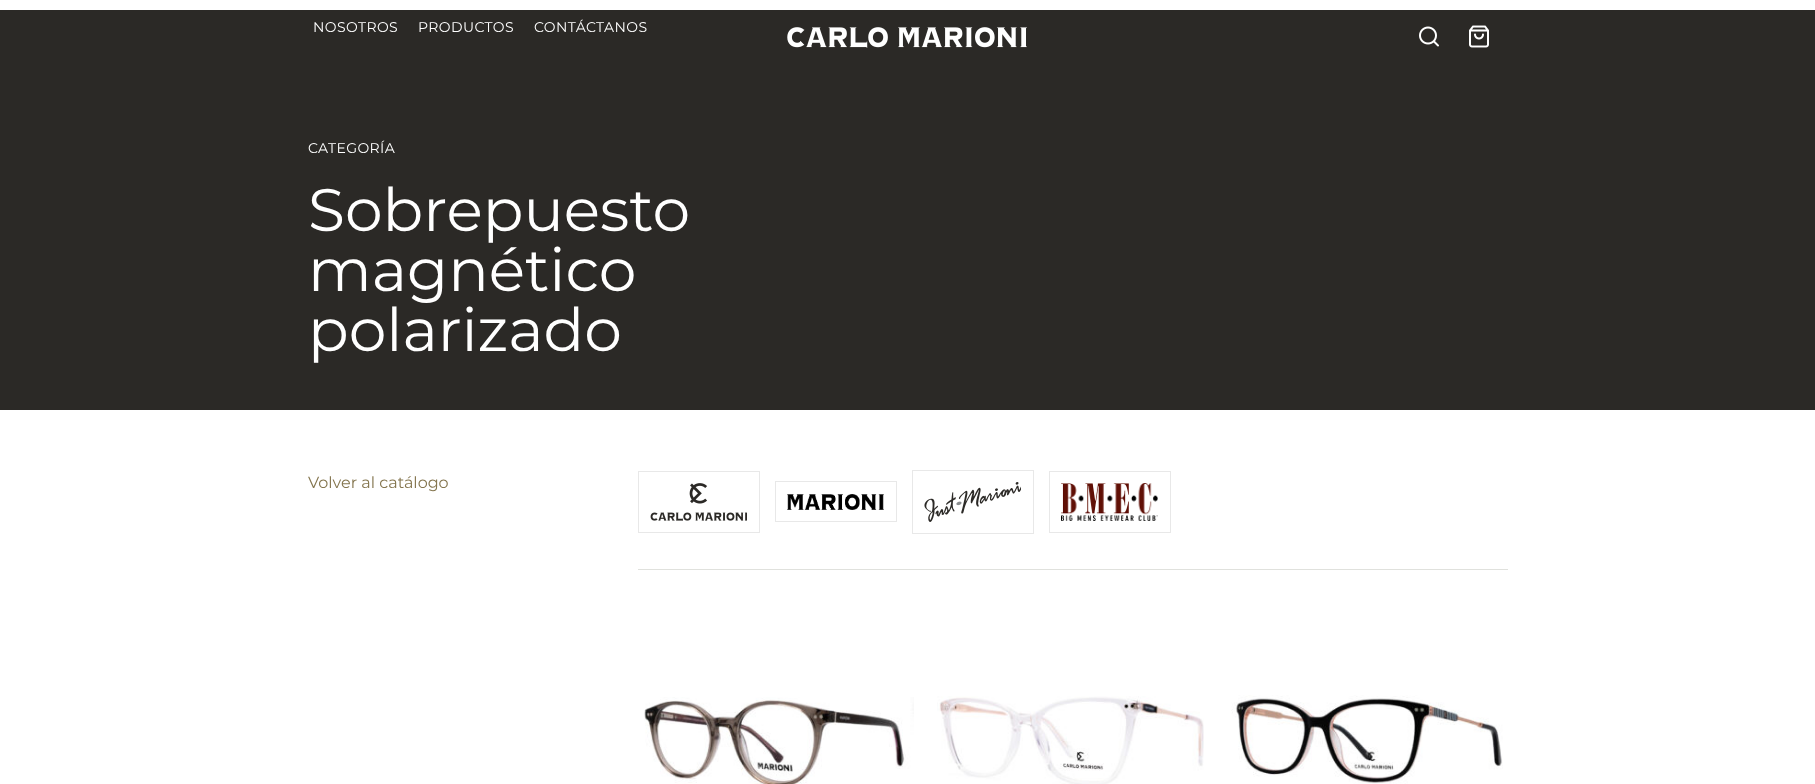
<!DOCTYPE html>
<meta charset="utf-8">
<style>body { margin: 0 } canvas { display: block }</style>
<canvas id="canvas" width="1815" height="784"></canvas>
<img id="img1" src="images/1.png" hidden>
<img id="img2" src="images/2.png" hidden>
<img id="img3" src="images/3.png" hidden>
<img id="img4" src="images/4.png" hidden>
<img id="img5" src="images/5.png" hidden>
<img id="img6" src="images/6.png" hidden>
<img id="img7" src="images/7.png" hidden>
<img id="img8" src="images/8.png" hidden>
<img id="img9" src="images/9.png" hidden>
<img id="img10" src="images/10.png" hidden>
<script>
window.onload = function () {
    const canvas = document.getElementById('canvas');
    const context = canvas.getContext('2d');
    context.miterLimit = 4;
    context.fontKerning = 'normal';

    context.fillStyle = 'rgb(255, 255, 255)';
    context.fillRect(0, 0, 1815, 784);
    context.fillStyle = 'rgb(43, 41, 38)';
    context.fillRect(0, 10, 1815, 400);
    context.drawImage(document.getElementById('img1'), 787, 27, 240, 21);
    context.drawImage(document.getElementById('img2'), 1419, 26, 20, 21);
    context.drawImage(document.getElementById('img3'), 1469, 25, 20, 23);
    context.strokeStyle = 'rgb(232, 232, 232)';
    context.strokeRect(638.5, 471.5, 121, 61);
    context.drawImage(document.getElementById('img4'), 650, 483, 97, 38);
    context.strokeRect(775.5, 481.5, 121, 40);
    context.drawImage(document.getElementById('img5'), 787, 494, 97, 16);
    context.strokeRect(912.5, 470.5, 121, 63);
    context.drawImage(document.getElementById('img6'), 924, 482, 97, 40);
    context.strokeRect(1049.5, 471.5, 121, 61);
    context.drawImage(document.getElementById('img7'), 1061, 483, 97, 38);
    context.fillStyle = 'rgb(224, 225, 221)';
    context.fillRect(638, 569, 870, 1);
    context.drawImage(document.getElementById('img8'), 644, 697, 270, 87);
    context.drawImage(document.getElementById('img9'), 937, 696, 267, 88);
    context.drawImage(document.getElementById('img10'), 1231, 695, 272, 89);
    context.letterSpacing = '0.4px';
    context.font = '14px Montserrat';
    context.fillStyle = 'rgb(255, 255, 255)';
    context.fillText('NOSOTROS', 313, 32);
    context.fillText('PRODUCTOS', 418, 32);
    context.fillText('CONTÁCTANOS', 534, 32);
    context.fillText('CATEGORÍA', 308, 153);
    context.letterSpacing = '0px';
    context.font = '60px Montserrat';
    context.fillText('Sobrepuesto', 308, 231);
    context.fillText('magnético', 308, 291);
    context.fillText('polarizado', 308, 351);
    context.font = '16px Montserrat';
    context.fillStyle = 'rgb(132, 117, 78)';
    context.fillText('Volver al catálogo', 308, 488);
};
</script>
